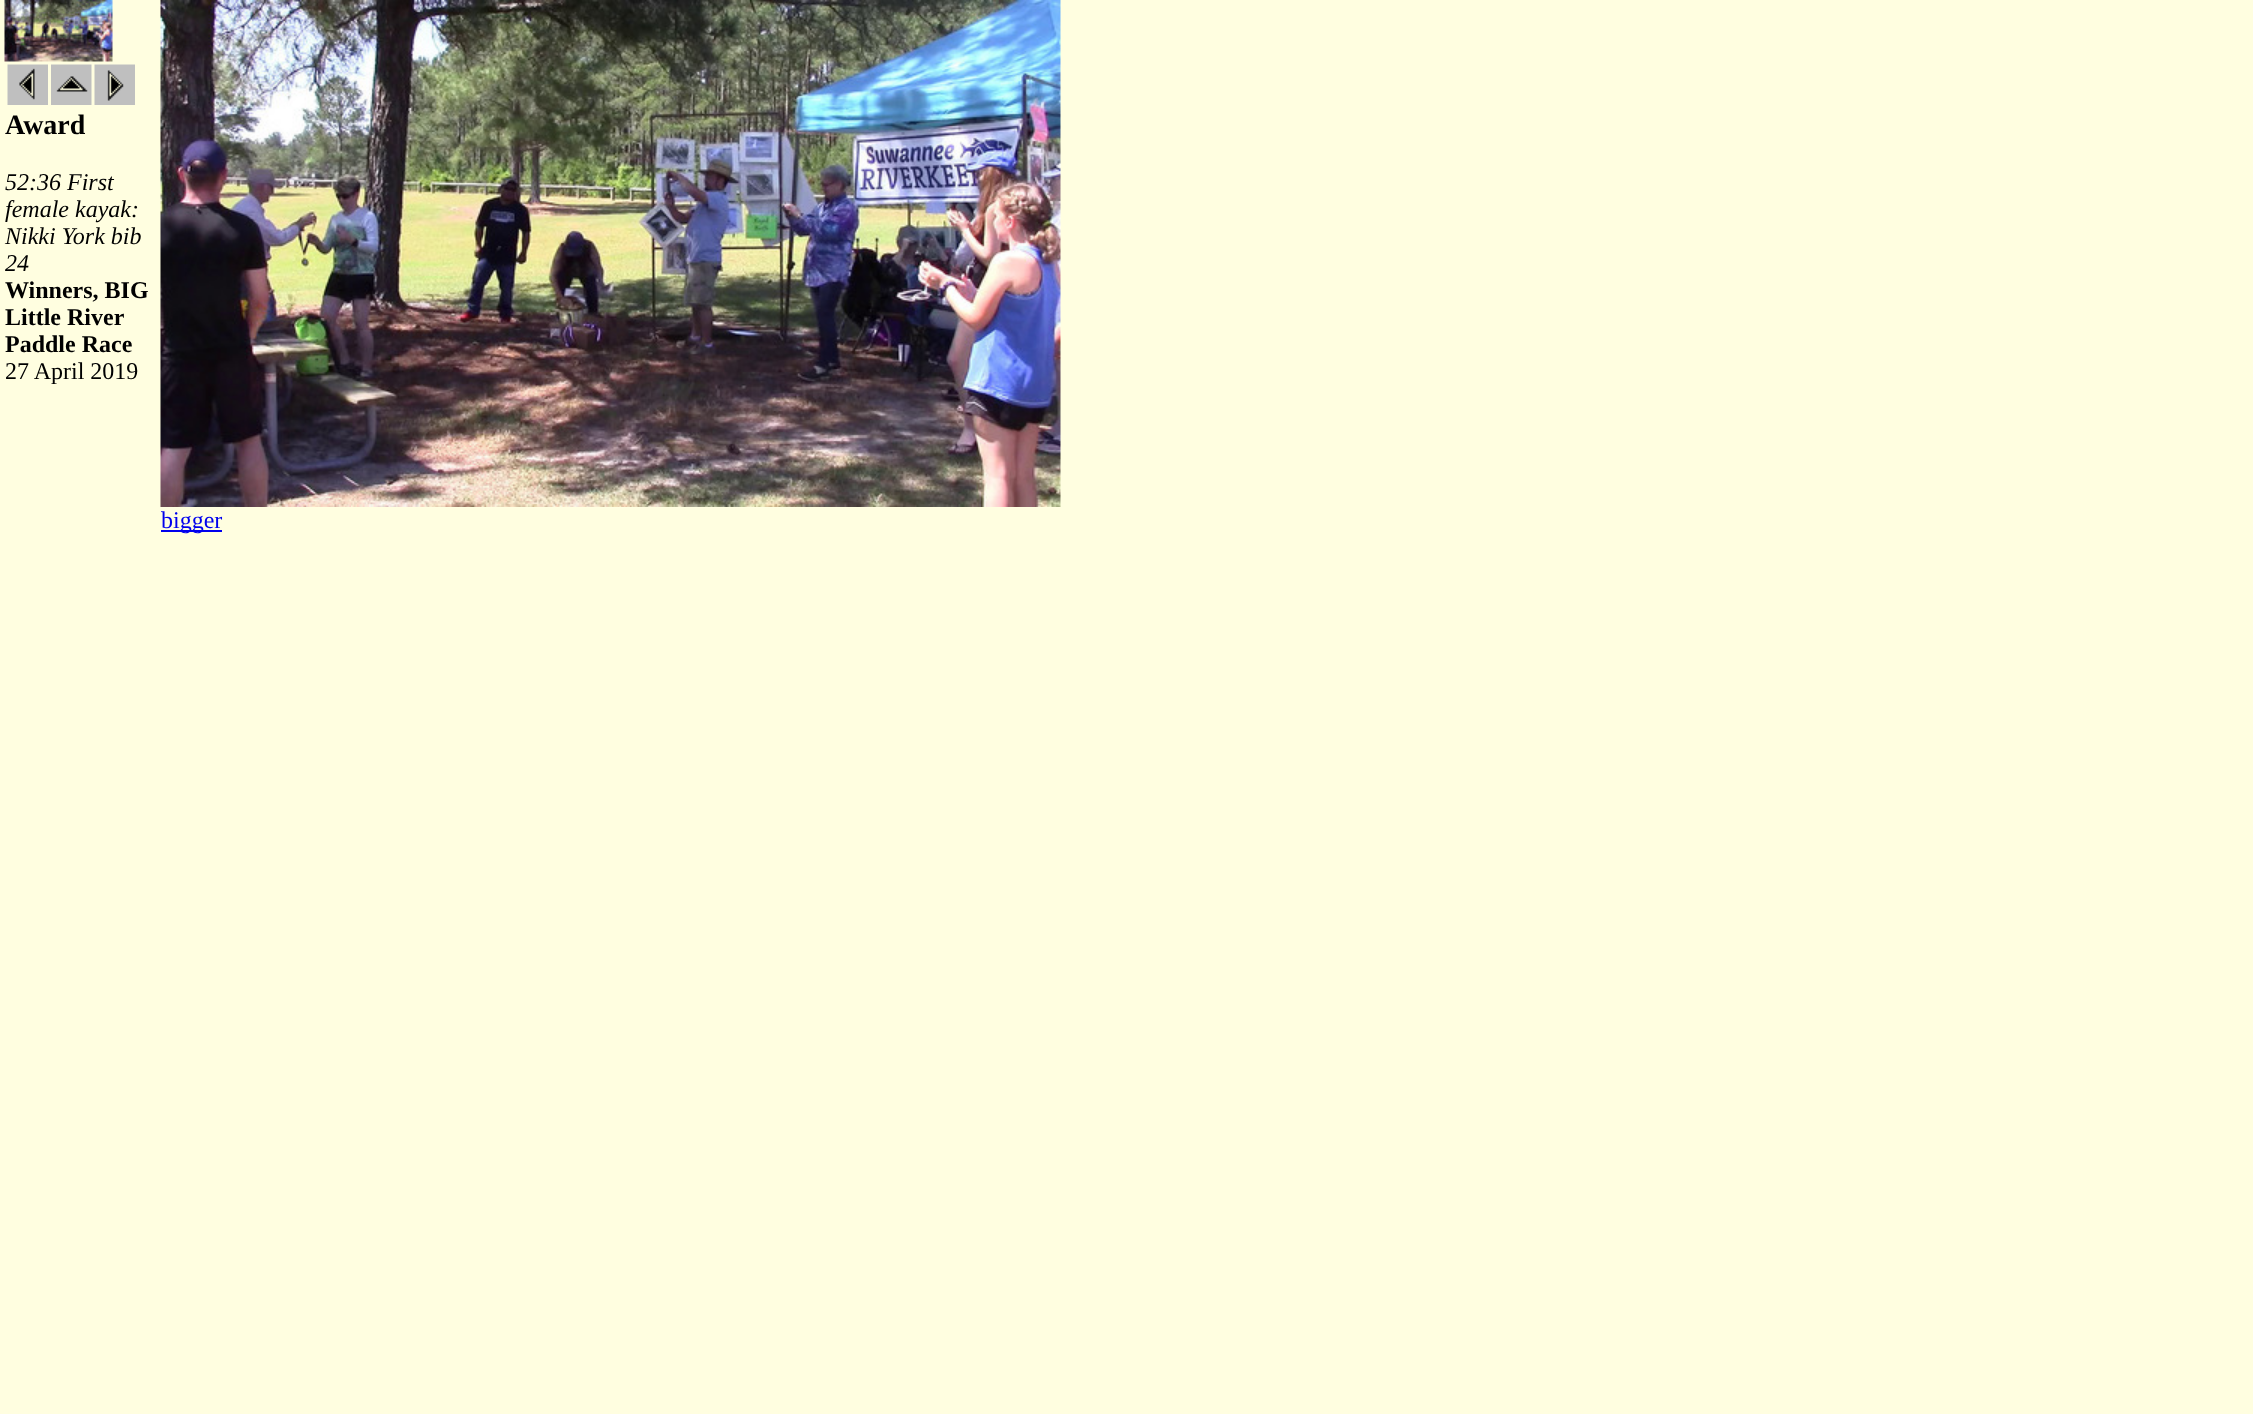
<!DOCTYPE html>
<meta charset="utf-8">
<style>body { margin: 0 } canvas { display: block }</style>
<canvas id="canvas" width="2253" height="1414"></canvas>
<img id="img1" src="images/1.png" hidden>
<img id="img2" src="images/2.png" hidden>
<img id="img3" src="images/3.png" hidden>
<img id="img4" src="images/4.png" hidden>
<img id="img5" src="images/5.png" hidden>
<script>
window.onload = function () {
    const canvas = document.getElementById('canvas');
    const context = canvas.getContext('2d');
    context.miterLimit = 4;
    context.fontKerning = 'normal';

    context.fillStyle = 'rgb(255, 254, 224)';
    context.fillRect(0, 0, 2253, 1414);
    context.drawImage(document.getElementById('img1'), 4, 0, 109, 62);
    context.drawImage(document.getElementById('img2'), 7, 64, 41, 41);
    context.drawImage(document.getElementById('img3'), 51, 64, 41, 41);
    context.drawImage(document.getElementById('img4'), 94, 64, 41, 41);
    context.drawImage(document.getElementById('img5'), 160, 0, 901, 507);
    context.fillStyle = 'rgb(0, 0, 238)';
    context.fillRect(161, 530, 61, 2);
    context.font = 'bold 28px Liberation Serif';
    context.fillStyle = 'rgb(0, 0, 0)';
    context.fillText('Award', 5, 134);
    context.font = 'italic 24px Liberation Serif';
    context.fillText('52:36 First', 5, 190);
    context.fillText('female kayak:', 5, 217);
    context.fillText('Nikki York bib', 5, 244);
    context.fillText('24', 5, 271);
    context.font = 'bold 24px Liberation Serif';
    context.fillText('Winners, BIG', 5, 298);
    context.fillText('Little River', 5, 325);
    context.fillText('Paddle Race', 5, 352);
    context.font = '24px Liberation Serif';
    context.fillText('27 April 2019', 5, 379);
    context.fillStyle = 'rgb(0, 0, 238)';
    context.fillText('bigger', 161, 528);
};
</script>
